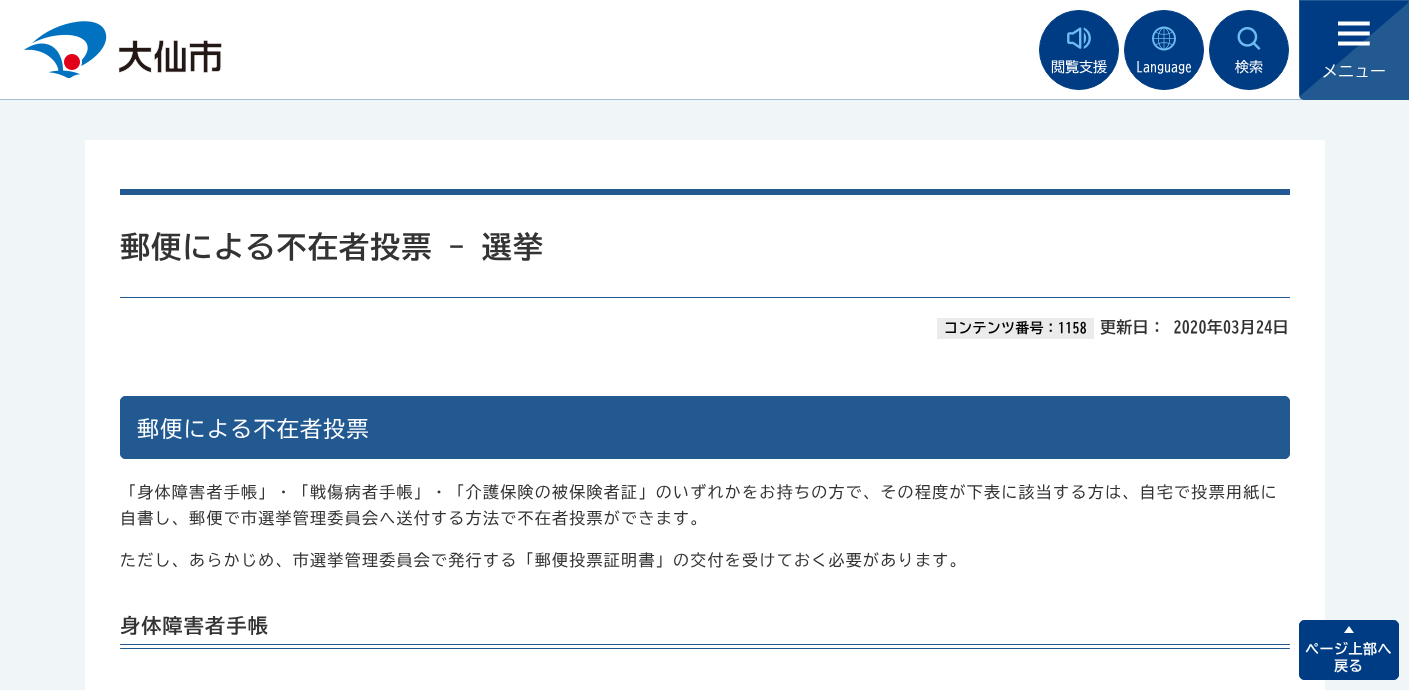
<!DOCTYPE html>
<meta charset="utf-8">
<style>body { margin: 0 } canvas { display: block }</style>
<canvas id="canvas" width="1409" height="690"></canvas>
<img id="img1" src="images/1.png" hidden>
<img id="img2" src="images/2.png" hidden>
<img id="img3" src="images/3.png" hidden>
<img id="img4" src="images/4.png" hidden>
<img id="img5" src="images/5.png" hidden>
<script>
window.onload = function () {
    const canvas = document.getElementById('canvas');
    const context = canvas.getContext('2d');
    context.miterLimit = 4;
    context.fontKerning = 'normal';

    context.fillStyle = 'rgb(255, 255, 255)';
    context.fillRect(0, 0, 1409, 690);
    context.fillStyle = 'rgb(159, 192, 214)';
    context.fillRect(0, 99, 1304, 1);
    context.drawImage(document.getElementById('img1'), 24, 21, 198, 57);
    context.fillStyle = 'rgb(0, 60, 131)';
    context.beginPath();
    context.arc(1079, 50, 39.5, 0, 2 * Math.PI);
    context.fill();
    context.strokeStyle = 'rgb(0, 60, 131)';
    context.stroke();
    context.drawImage(document.getElementById('img2'), 1067, 27, 24, 22);
    context.beginPath();
    context.arc(1164, 50, 39.5, 0, 2 * Math.PI);
    context.fill();
    context.stroke();
    context.drawImage(document.getElementById('img3'), 1152, 26, 24, 25);
    context.beginPath();
    context.arc(1249, 50, 39.5, 0, 2 * Math.PI);
    context.fill();
    context.stroke();
    context.drawImage(document.getElementById('img4'), 1237, 27, 24, 23);
    context.fillStyle = 'rgb(33, 89, 144)';
    context.beginPath();
    context.roundRect(1299, 0, 110, 100, [0, 0, 0, 5]);
    context.fill();
    context.fillStyle = 'rgb(0, 60, 131)';
    context.beginPath();
    context.moveTo(1300, 1);
    context.lineTo(1300, 96);
    context.lineTo(1408, 3);
    context.lineTo(1408, 1);
    context.closePath();
    context.fill();
    context.drawImage(document.getElementById('img5'), 1338, 21, 32, 25);
    context.fillStyle = 'rgb(240, 245, 248)';
    context.fillRect(0, 100, 1409, 590);
    context.fillStyle = 'rgb(255, 255, 255)';
    context.fillRect(85, 140, 1240, 550);
    context.fillStyle = 'rgb(33, 89, 144)';
    context.fillRect(120, 189, 1170, 6);
    context.fillRect(120, 297, 1170, 1);
    context.fillStyle = 'rgb(235, 235, 235)';
    context.fillRect(937, 318, 157, 21);
    context.fillStyle = 'rgb(33, 89, 144)';
    context.beginPath();
    context.roundRect(120.5, 396.5, 1169, 62, 4.5);
    context.fill();
    context.strokeStyle = 'rgb(33, 89, 144)';
    context.stroke();
    context.beginPath();
    context.roundRect(120, 644, 1170, 1, 0.5);
    context.fill();
    context.beginPath();
    context.roundRect(120, 648, 1170, 1, 0.5);
    context.fill();
    context.fillStyle = 'rgb(0, 60, 131)';
    context.beginPath();
    context.roundRect(1299.5, 620.5, 99, 59, 4.5);
    context.fill();
    context.strokeStyle = 'rgb(0, 60, 131)';
    context.stroke();
    context.fillStyle = 'rgb(255, 255, 255)';
    context.beginPath();
    context.moveTo(1354, 633);
    context.lineTo(1344, 633);
    context.lineTo(1349, 626);
    context.closePath();
    context.fill();
    context.font = '14px BIZ UDGothic';
    context.fillText('閲覧支援', 1051, 72);
    context.fillText('Language', 1136, 72);
    context.fillText('検索', 1235, 72);
    context.font = '16px BIZ UDGothic';
    context.fillText('メニュー', 1322, 77);
    context.letterSpacing = '1.28px';
    context.font = 'bold 30px BIZ UDGothic';
    context.fillStyle = 'rgb(51, 51, 51)';
    context.fillText('郵便による不在者投票 - 選挙', 120, 258);
    context.letterSpacing = '0.25px';
    context.font = 'bold 14px BIZ UDGothic';
    context.fillStyle = 'rgb(0, 0, 0)';
    context.fillText('コンテンツ番号：1158', 944, 333);
    context.letterSpacing = '0.3px';
    context.font = 'bold 16px BIZ UDGothic';
    context.fillStyle = 'rgb(51, 51, 51)';
    context.fillText('更新日： 2020年03月24日', 1100, 333);
    context.letterSpacing = '1.28px';
    context.font = '22px BIZ UDGothic';
    context.fillStyle = 'rgb(255, 255, 255)';
    context.fillText('郵便による不在者投票', 137, 437);
    context.font = '16px BIZ UDGothic';
    context.fillStyle = 'rgb(51, 51, 51)';
    context.fillText('「身体障害者手帳」・「戦傷病者手帳」・「介護保険の被保険者証」のいずれかをお持ちの方で、その程度が下表に該当する方は、自宅で投票用紙に', 120, 498);
    context.fillText('自書し、郵便で市選挙管理委員会へ送付する方法で不在者投票ができます。', 120, 524);
    context.fillText('ただし、あらかじめ、市選挙管理委員会で発行する「郵便投票証明書」の交付を受けておく必要があります。', 120, 566);
    context.font = 'bold 20px BIZ UDGothic';
    context.fillText('身体障害者手帳', 120, 633);
    context.letterSpacing = '0.5px';
    context.font = 'bold 14px BIZ UDGothic';
    context.fillStyle = 'rgb(255, 255, 255)';
    context.fillText('ページ上部へ', 1305, 654);
    context.fillText('戻る', 1334, 671);
};
</script>
